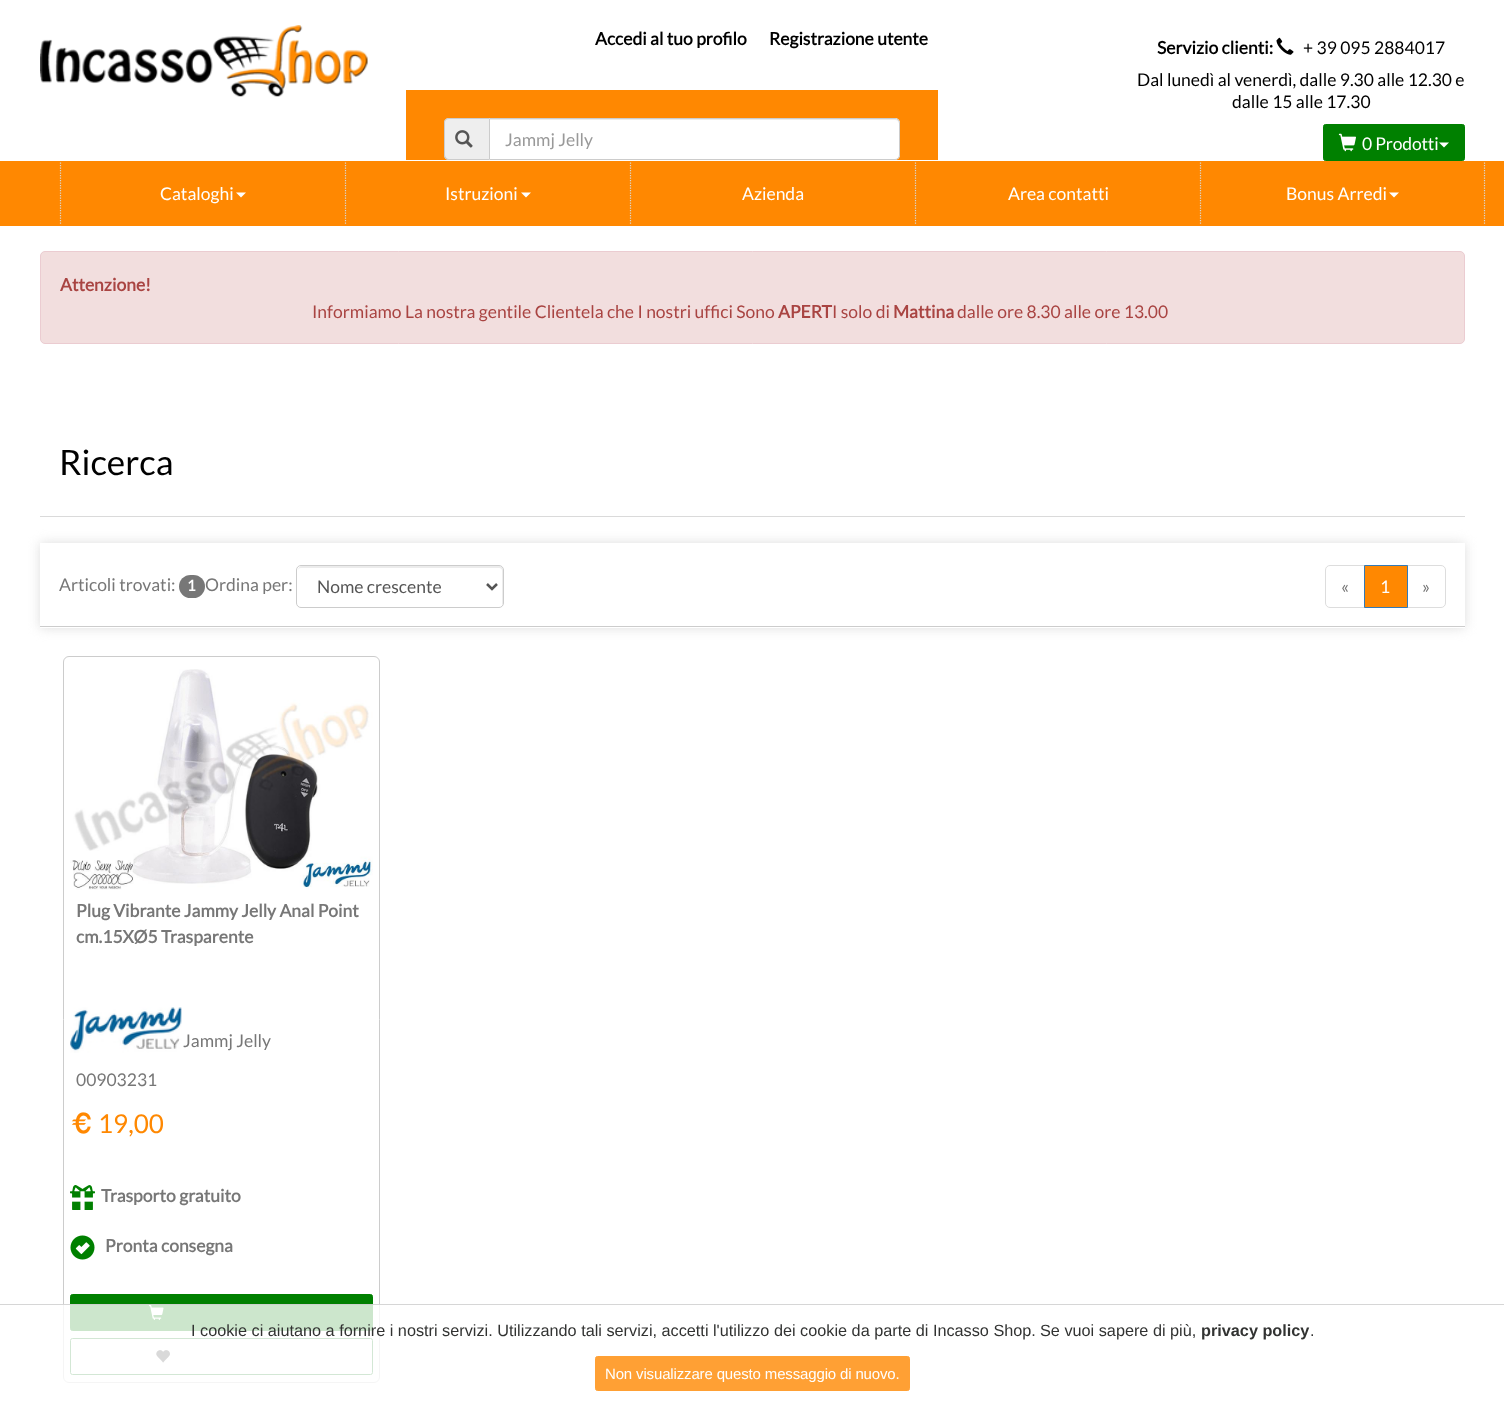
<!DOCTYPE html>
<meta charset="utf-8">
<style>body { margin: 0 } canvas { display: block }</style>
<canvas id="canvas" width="1504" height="1403"></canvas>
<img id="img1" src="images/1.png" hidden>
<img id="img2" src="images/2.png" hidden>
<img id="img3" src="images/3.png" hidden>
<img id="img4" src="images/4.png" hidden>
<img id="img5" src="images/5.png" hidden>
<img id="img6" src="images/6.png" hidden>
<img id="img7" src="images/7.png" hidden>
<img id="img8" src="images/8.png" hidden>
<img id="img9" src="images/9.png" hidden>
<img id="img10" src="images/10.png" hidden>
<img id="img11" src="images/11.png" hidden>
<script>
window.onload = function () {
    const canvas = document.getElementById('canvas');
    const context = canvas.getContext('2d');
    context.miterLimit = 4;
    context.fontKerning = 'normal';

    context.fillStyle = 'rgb(255, 255, 255)';
    context.fillRect(0, 0, 1504, 1403);
    context.drawImage(document.getElementById('img1'), 40, 25, 328, 72);
    context.fillStyle = 'rgb(255, 136, 1)';
    context.fillRect(406, 90, 532, 70);
    context.fillStyle = 'rgb(238, 238, 238)';
    context.beginPath();
    context.roundRect(444, 118, 45, 42, [5, 0, 0, 5]);
    context.fill();
    context.fillStyle = 'rgb(204, 204, 204)';
    context.beginPath();
    context.moveTo(449, 118);
    context.lineTo(489, 118);
    context.lineTo(489, 160);
    context.lineTo(449, 160);
    context.bezierCurveTo(446, 160, 444, 158, 444, 155);
    context.lineTo(444, 122);
    context.bezierCurveTo(444, 120, 446, 118, 449, 118);
    context.closePath();
    context.moveTo(449, 119);
    context.lineTo(489, 119);
    context.lineTo(489, 159);
    context.lineTo(449, 159);
    context.bezierCurveTo(447, 159, 445, 157, 445, 155);
    context.lineTo(445, 122);
    context.bezierCurveTo(445, 120, 447, 119, 449, 119);
    context.closePath();
    context.fill('evenodd');
    context.drawImage(document.getElementById('img2'), 455, 130, 18, 18);
    context.fillStyle = 'rgb(255, 255, 255)';
    context.beginPath();
    context.roundRect(489, 118, 411, 42, [0, 5, 5, 0]);
    context.fill();
    context.fillStyle = 'rgb(236, 236, 236)';
    context.beginPath();
    context.moveTo(490, 120);
    context.lineTo(895, 120);
    context.bezierCurveTo(897, 120, 899, 122, 899, 124);
    context.lineTo(899, 123);
    context.bezierCurveTo(899, 121, 897, 119, 895, 119);
    context.lineTo(490, 119);
    context.closePath();
    context.fill();
    context.beginPath();
    context.roundRect(489.5, 118.5, 410, 41, [0, 4.5, 4.5, 0]);
    context.strokeStyle = 'rgb(204, 204, 204)';
    context.stroke();
    context.drawImage(document.getElementById('img3'), 1276, 37, 18, 18);
    context.fillStyle = 'rgb(0, 128, 0)';
    context.beginPath();
    context.roundRect(1323.5, 124.5, 141, 36, 2);
    context.fill();
    context.strokeStyle = 'rgb(0, 128, 0)';
    context.stroke();
    context.drawImage(document.getElementById('img4'), 1338, 133, 18, 19);
    context.fillStyle = 'rgb(255, 255, 255)';
    context.beginPath();
    context.moveTo(1439, 142.5);
    context.lineTo(1449, 142.5);
    context.lineTo(1444, 147.5);
    context.closePath();
    context.fill();
    context.fillStyle = 'rgb(255, 136, 1)';
    context.fillRect(0, 161, 1504, 65);
    context.beginPath();
    context.moveTo(60.5, 162.5);
    context.lineTo(60.5, 225);
    context.strokeStyle = 'rgb(216, 216, 216)';
    context.lineWidth = 1.2;
    context.setLineDash([1.25, 1.25]);
    context.stroke();
    context.fillStyle = 'rgb(255, 255, 255)';
    context.beginPath();
    context.moveTo(236, 192.5);
    context.lineTo(246, 192.5);
    context.lineTo(241, 197.5);
    context.closePath();
    context.fill();
    context.beginPath();
    context.moveTo(345.5, 162.5);
    context.lineTo(345.5, 225);
    context.stroke();
    context.beginPath();
    context.moveTo(521, 192.5);
    context.lineTo(531, 192.5);
    context.lineTo(526, 197.5);
    context.closePath();
    context.fill();
    context.beginPath();
    context.moveTo(630.5, 162.5);
    context.lineTo(630.5, 225);
    context.stroke();
    context.beginPath();
    context.moveTo(915.5, 162.5);
    context.lineTo(915.5, 225);
    context.stroke();
    context.beginPath();
    context.moveTo(1484.5, 162.5);
    context.lineTo(1484.5, 225);
    context.stroke();
    context.beginPath();
    context.moveTo(1200.5, 162.5);
    context.lineTo(1200.5, 225);
    context.stroke();
    context.beginPath();
    context.moveTo(1389, 192.5);
    context.lineTo(1399, 192.5);
    context.lineTo(1394, 197.5);
    context.closePath();
    context.fill();
    context.fillStyle = 'rgb(242, 222, 222)';
    context.beginPath();
    context.roundRect(40.5, 251.5, 1424, 92, 4.5);
    context.fill();
    context.strokeStyle = 'rgb(235, 204, 209)';
    context.lineWidth = 1;
    context.setLineDash([]);
    context.stroke();
    context.fillStyle = 'rgb(218, 218, 218)';
    context.fillRect(40, 516, 1425, 1);
    context.save();
    context.beginPath();
    context.moveTo(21, 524);
    context.lineTo(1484, 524);
    context.lineTo(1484, 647);
    context.lineTo(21, 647);
    context.closePath();
    context.moveTo(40, 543);
    context.lineTo(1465, 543);
    context.lineTo(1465, 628);
    context.lineTo(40, 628);
    context.closePath();
    context.clip('evenodd');
    context.fillStyle = 'rgb(221, 221, 221)';
    context.filter = 'blur(6px)';
    context.beginPath();
    context.rect(40, 543, 1425, 85);
    context.fill();
    context.filter = 'none';
    context.restore();
    context.fillStyle = 'rgb(204, 204, 204)';
    context.fillRect(40, 626, 1425, 1);
    context.fillStyle = 'rgb(119, 119, 119)';
    context.beginPath();
    context.roundRect(179, 575, 26, 23, 11.5);
    context.fill();
    context.fillStyle = 'rgb(236, 236, 236)';
    context.beginPath();
    context.moveTo(301, 568);
    context.lineTo(499, 568);
    context.bezierCurveTo(501, 568, 502, 569, 502, 571);
    context.lineTo(502, 605);
    context.bezierCurveTo(503, 604, 503, 603, 503, 602);
    context.lineTo(503, 570);
    context.bezierCurveTo(503, 568, 501, 566, 499, 566);
    context.lineTo(302, 566);
    context.bezierCurveTo(300, 566, 298, 568, 298, 570);
    context.lineTo(298, 571);
    context.bezierCurveTo(298, 569, 299, 568, 301, 568);
    context.closePath();
    context.fill();
    context.beginPath();
    context.roundRect(296.5, 565.5, 207, 42, 4.5);
    context.strokeStyle = 'rgb(204, 204, 204)';
    context.stroke();
    context.beginPath();
    context.moveTo(487, 584);
    context.lineTo(492, 589);
    context.lineTo(497, 584);
    context.strokeStyle = 'rgb(85, 85, 85)';
    context.lineWidth = 2.5;
    context.stroke();
    context.beginPath();
    context.roundRect(1325.5, 565.5, 39, 42, [4.5, 0, 0, 4.5]);
    context.strokeStyle = 'rgb(221, 221, 221)';
    context.lineWidth = 1;
    context.stroke();
    context.beginPath();
    context.roundRect(1406.5, 565.5, 39, 42, [0, 4.5, 4.5, 0]);
    context.stroke();
    context.fillStyle = 'rgb(255, 136, 1)';
    context.beginPath();
    context.rect(1364.5, 565.5, 43, 42);
    context.fill();
    context.strokeStyle = 'rgb(51, 122, 183)';
    context.stroke();
    context.beginPath();
    context.roundRect(63.5, 656.5, 316, 726, 5.5);
    context.strokeStyle = 'rgb(204, 204, 204)';
    context.stroke();
    context.drawImage(document.getElementById('img5'), 70, 669, 303, 221);
    context.drawImage(document.getElementById('img6'), 70, 1007, 112, 46);
    context.drawImage(document.getElementById('img7'), 71, 1112, 20, 22);
    context.drawImage(document.getElementById('img8'), 70, 1185, 25, 25);
    context.drawImage(document.getElementById('img9'), 70, 1235, 25, 25);
    context.fillStyle = 'rgb(0, 128, 0)';
    context.beginPath();
    context.roundRect(70.5, 1294.5, 302, 36, 2);
    context.fill();
    context.strokeStyle = 'rgb(0, 128, 0)';
    context.stroke();
    context.drawImage(document.getElementById('img10'), 148, 1305, 16, 15);
    context.beginPath();
    context.roundRect(70.5, 1338.5, 302, 36, 2);
    context.strokeStyle = 'rgb(38, 136, 46)';
    context.stroke();
    context.drawImage(document.getElementById('img11'), 156, 1350, 14, 13);
    context.fillStyle = 'rgba(255, 255, 255, 0.8)';
    context.fillRect(63, 1304, 317, 79);
    context.fillStyle = 'rgba(204, 204, 204, 0.8)';
    context.fillRect(0, 1304, 1504, 1);
    context.fillStyle = 'rgb(255, 160, 52)';
    context.beginPath();
    context.roundRect(595.5, 1356.5, 314, 34, 2);
    context.fill();
    context.strokeStyle = 'rgb(255, 160, 52)';
    context.stroke();
    context.font = 'bold 17.5px Lato';
    context.fillStyle = 'rgb(0, 0, 0)';
    context.fillText('Accedi al tuo profilo', 595, 45);
    context.fillText('Registrazione utente', 769, 45);
    context.font = '17.5px Lato';
    context.fillStyle = 'rgb(153, 153, 153)';
    context.fillText('Jammj Jelly', 505, 146);
    context.font = 'bold 17.5px Lato';
    context.fillStyle = 'rgb(0, 0, 0)';
    context.fillText('Servizio clienti:', 1157, 54);
    context.font = '17.5px Lato';
    context.fillText('+ 39 095 2884017', 1303, 54);
    context.fillText('Dal lunedì al venerdì, dalle 9.30 alle 12.30 e', 1137, 86);
    context.fillText('dalle 15 alle 17.30', 1232, 108);
    context.letterSpacing = '-0.15px';
    context.fillStyle = 'rgb(255, 255, 255)';
    context.fillText('0 Prodotti', 1362, 150);
    context.letterSpacing = '0px';
    context.fillText('Cataloghi', 160, 200);
    context.fillText('Istruzioni', 445, 200);
    context.fillText('Azienda', 742, 200);
    context.fillText('Area contatti', 1008, 200);
    context.fillText('Bonus Arredi', 1286, 200);
    context.font = 'bold 17.5px Lato';
    context.fillStyle = 'rgb(169, 68, 66)';
    context.fillText('Attenzione!', 60, 291);
    context.font = '17.5px Lato';
    context.fillText('Informiamo La nostra gentile Clientela che I nostri uffici Sono', 312, 318);
    context.font = 'bold 17.5px Lato';
    context.fillText('APERT', 778, 318);
    context.font = '17.5px Lato';
    context.fillText('I solo di', 832, 318);
    context.font = 'bold 17.5px Lato';
    context.fillText('Mattina', 893, 318);
    context.font = '17.5px Lato';
    context.fillText('dalle ore 8.30 alle ore 13.00', 957, 318);
    context.font = '35px Lato';
    context.fillStyle = 'rgb(0, 0, 0)';
    context.fillText('Ricerca', 59, 475);
    context.font = '17.5px Lato';
    context.fillStyle = 'rgb(119, 119, 119)';
    context.fillText('Articoli trovati:', 59, 591);
    context.font = 'bold 15px Lato';
    context.fillStyle = 'rgb(255, 255, 255)';
    context.fillText('1', 187, 591);
    context.font = '17.5px Lato';
    context.fillStyle = 'rgb(119, 119, 119)';
    context.fillText('Ordina per:', 205, 591);
    context.fillStyle = 'rgb(85, 85, 85)';
    context.fillText('Nome crescente', 317, 593);
    context.fillStyle = 'rgb(119, 119, 119)';
    context.fillText('«', 1341, 593);
    context.fillStyle = 'rgb(255, 255, 255)';
    context.fillText('1', 1380, 593);
    context.fillStyle = 'rgb(119, 119, 119)';
    context.fillText('»', 1422, 593);
    context.font = 'bold 17.5px Lato';
    context.fillText('Plug Vibrante Jammy Jelly Anal Point', 76, 917);
    context.fillText('cm.15XØ5 Trasparente', 76, 943);
    context.font = '17.5px Lato';
    context.fillText('Jammj Jelly', 183, 1047);
    context.fillText('00903231', 76, 1086);
    context.font = '26px Lato';
    context.fillStyle = 'rgb(255, 136, 1)';
    context.fillText('19,00', 98, 1133);
    context.font = 'bold 17.5px Lato';
    context.fillStyle = 'rgb(119, 119, 119)';
    context.fillText('Trasporto gratuito', 101, 1202);
    context.fillText('Pronta consegna', 105, 1252);
    context.font = '16.25px Liberation Sans';
    context.fillStyle = 'rgb(50, 51, 50)';
    context.fillText('I cookie ci aiutano a fornire i nostri servizi. Utilizzando tali servizi, accetti l\'utilizzo dei cookie da parte di Incasso Shop.', 191, 1336);
    context.fillText('Se vuoi sapere di più,', 1040, 1336);
    context.font = 'bold 16.25px Liberation Sans';
    context.fillText('privacy policy', 1201, 1336);
    context.font = '16.25px Liberation Sans';
    context.fillText('.', 1310, 1336);
    context.letterSpacing = '-0.15px';
    context.font = '15px Liberation Sans';
    context.fillStyle = 'rgb(255, 255, 255)';
    context.fillText('Non visualizzare questo messaggio di nuovo.', 605, 1379);
};
</script>
